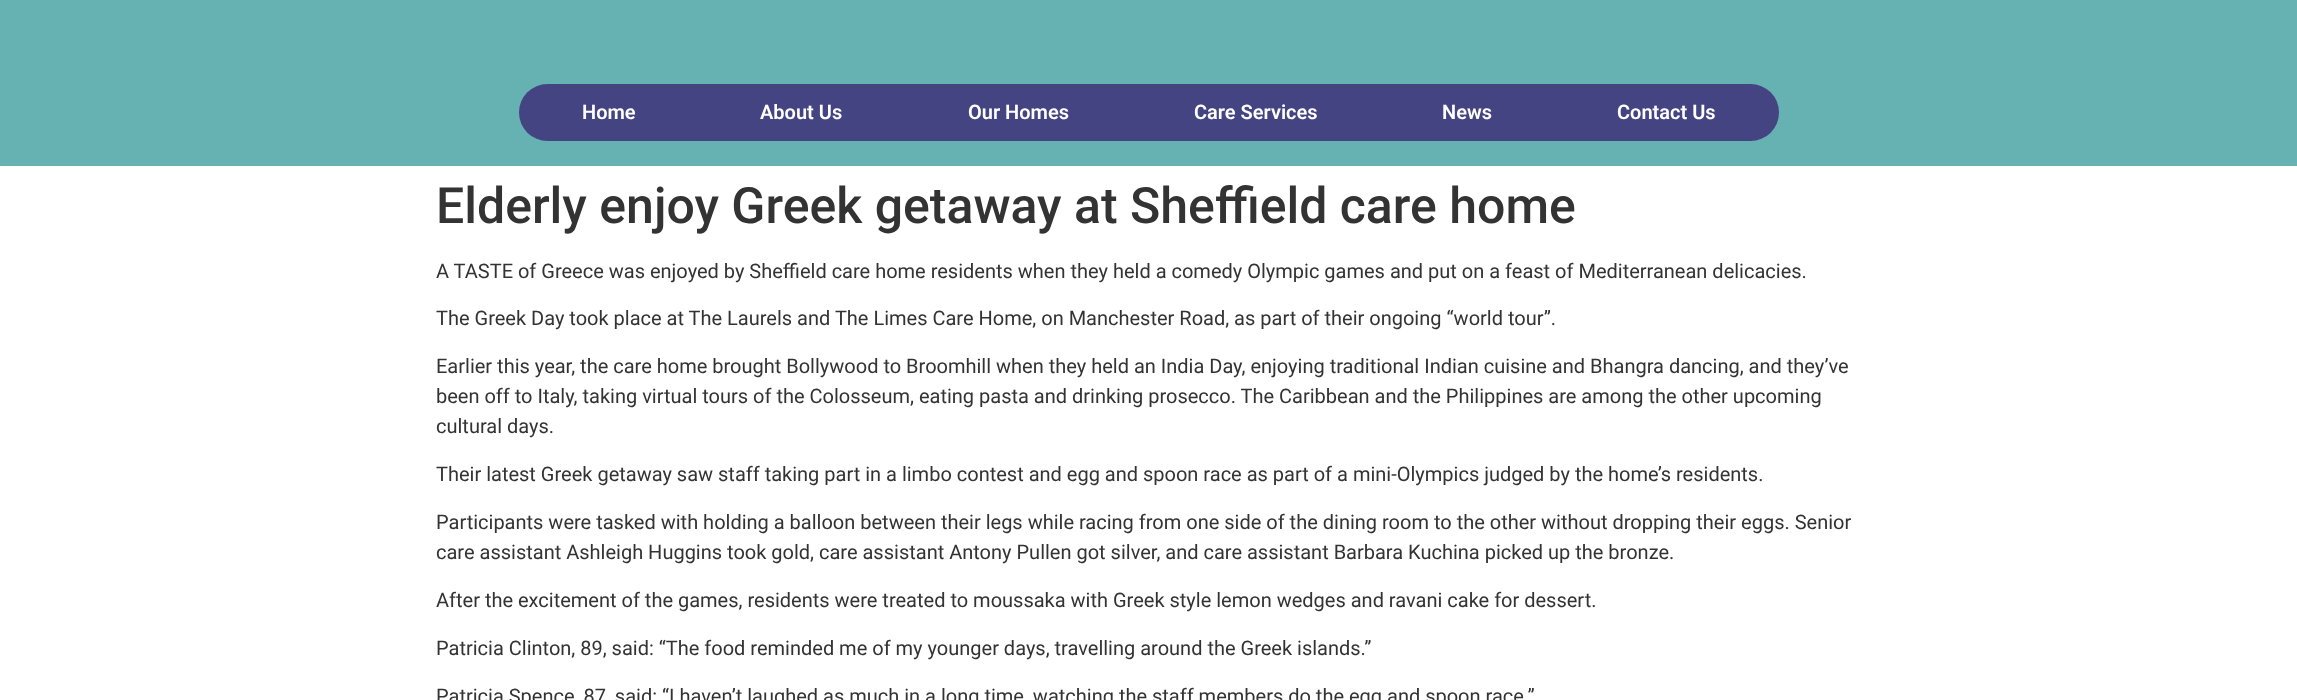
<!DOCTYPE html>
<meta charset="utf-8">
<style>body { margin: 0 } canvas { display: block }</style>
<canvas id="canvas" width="2297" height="700"></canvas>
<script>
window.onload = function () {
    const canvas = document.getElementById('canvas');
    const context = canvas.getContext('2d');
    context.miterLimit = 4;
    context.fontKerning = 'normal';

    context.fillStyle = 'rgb(255, 255, 255)';
    context.fillRect(0, 0, 2297, 700);
    context.fillStyle = 'rgb(102, 178, 178)';
    context.fillRect(0, 0, 2297, 166);
    context.fillStyle = 'rgb(68, 68, 131)';
    context.beginPath();
    context.roundRect(519, 84, 1260, 57, 28.5);
    context.fill();
    context.font = '600 20px Roboto';
    context.fillStyle = 'rgb(255, 255, 255)';
    context.fillText('Home', 582, 119);
    context.fillText('About Us', 760, 119);
    context.fillText('Our Homes', 968, 119);
    context.fillText('Care Services', 1194, 119);
    context.fillText('News', 1442, 119);
    context.fillText('Contact Us', 1617, 119);
    context.font = '500 50px Roboto';
    context.fillStyle = 'rgb(51, 51, 51)';
    context.fillText('Elderly enjoy Greek getaway at Sheffield care home', 436, 223);
    context.font = '20px Roboto';
    context.fillText('A TASTE of Greece was enjoyed by Sheffield care home residents when they held a comedy Olympic games and put on a feast of Mediterranean delicacies.', 436, 278);
    context.fillText('The Greek Day took place at The Laurels and The Limes Care Home, on Manchester Road, as part of their ongoing “world tour”.', 436, 325);
    context.fillText('Earlier this year, the care home brought Bollywood to Broomhill when they held an India Day, enjoying traditional Indian cuisine and Bhangra dancing, and they’ve', 436, 373);
    context.fillText('been off to Italy, taking virtual tours of the Colosseum, eating pasta and drinking prosecco. The Caribbean and the Philippines are among the other upcoming', 436, 403);
    context.fillText('cultural days.', 436, 433);
    context.fillText('Their latest Greek getaway saw staff taking part in a limbo contest and egg and spoon race as part of a mini-Olympics judged by the home’s residents.', 436, 481);
    context.fillText('Participants were tasked with holding a balloon between their legs while racing from one side of the dining room to the other without dropping their eggs. Senior', 436, 529);
    context.fillText('care assistant Ashleigh Huggins took gold, care assistant Antony Pullen got silver, and care assistant Barbara Kuchina picked up the bronze.', 436, 559);
    context.fillText('After the excitement of the games, residents were treated to moussaka with Greek style lemon wedges and ravani cake for dessert.', 436, 607);
    context.fillText('Patricia Clinton, 89, said: “The food reminded me of my younger days, travelling around the Greek islands.”', 436, 655);
    context.fillText('Patricia Spence, 87, said: “I haven’t laughed as much in a long time, watching the staff members do the egg and spoon race.”', 436, 703);
};
</script>
